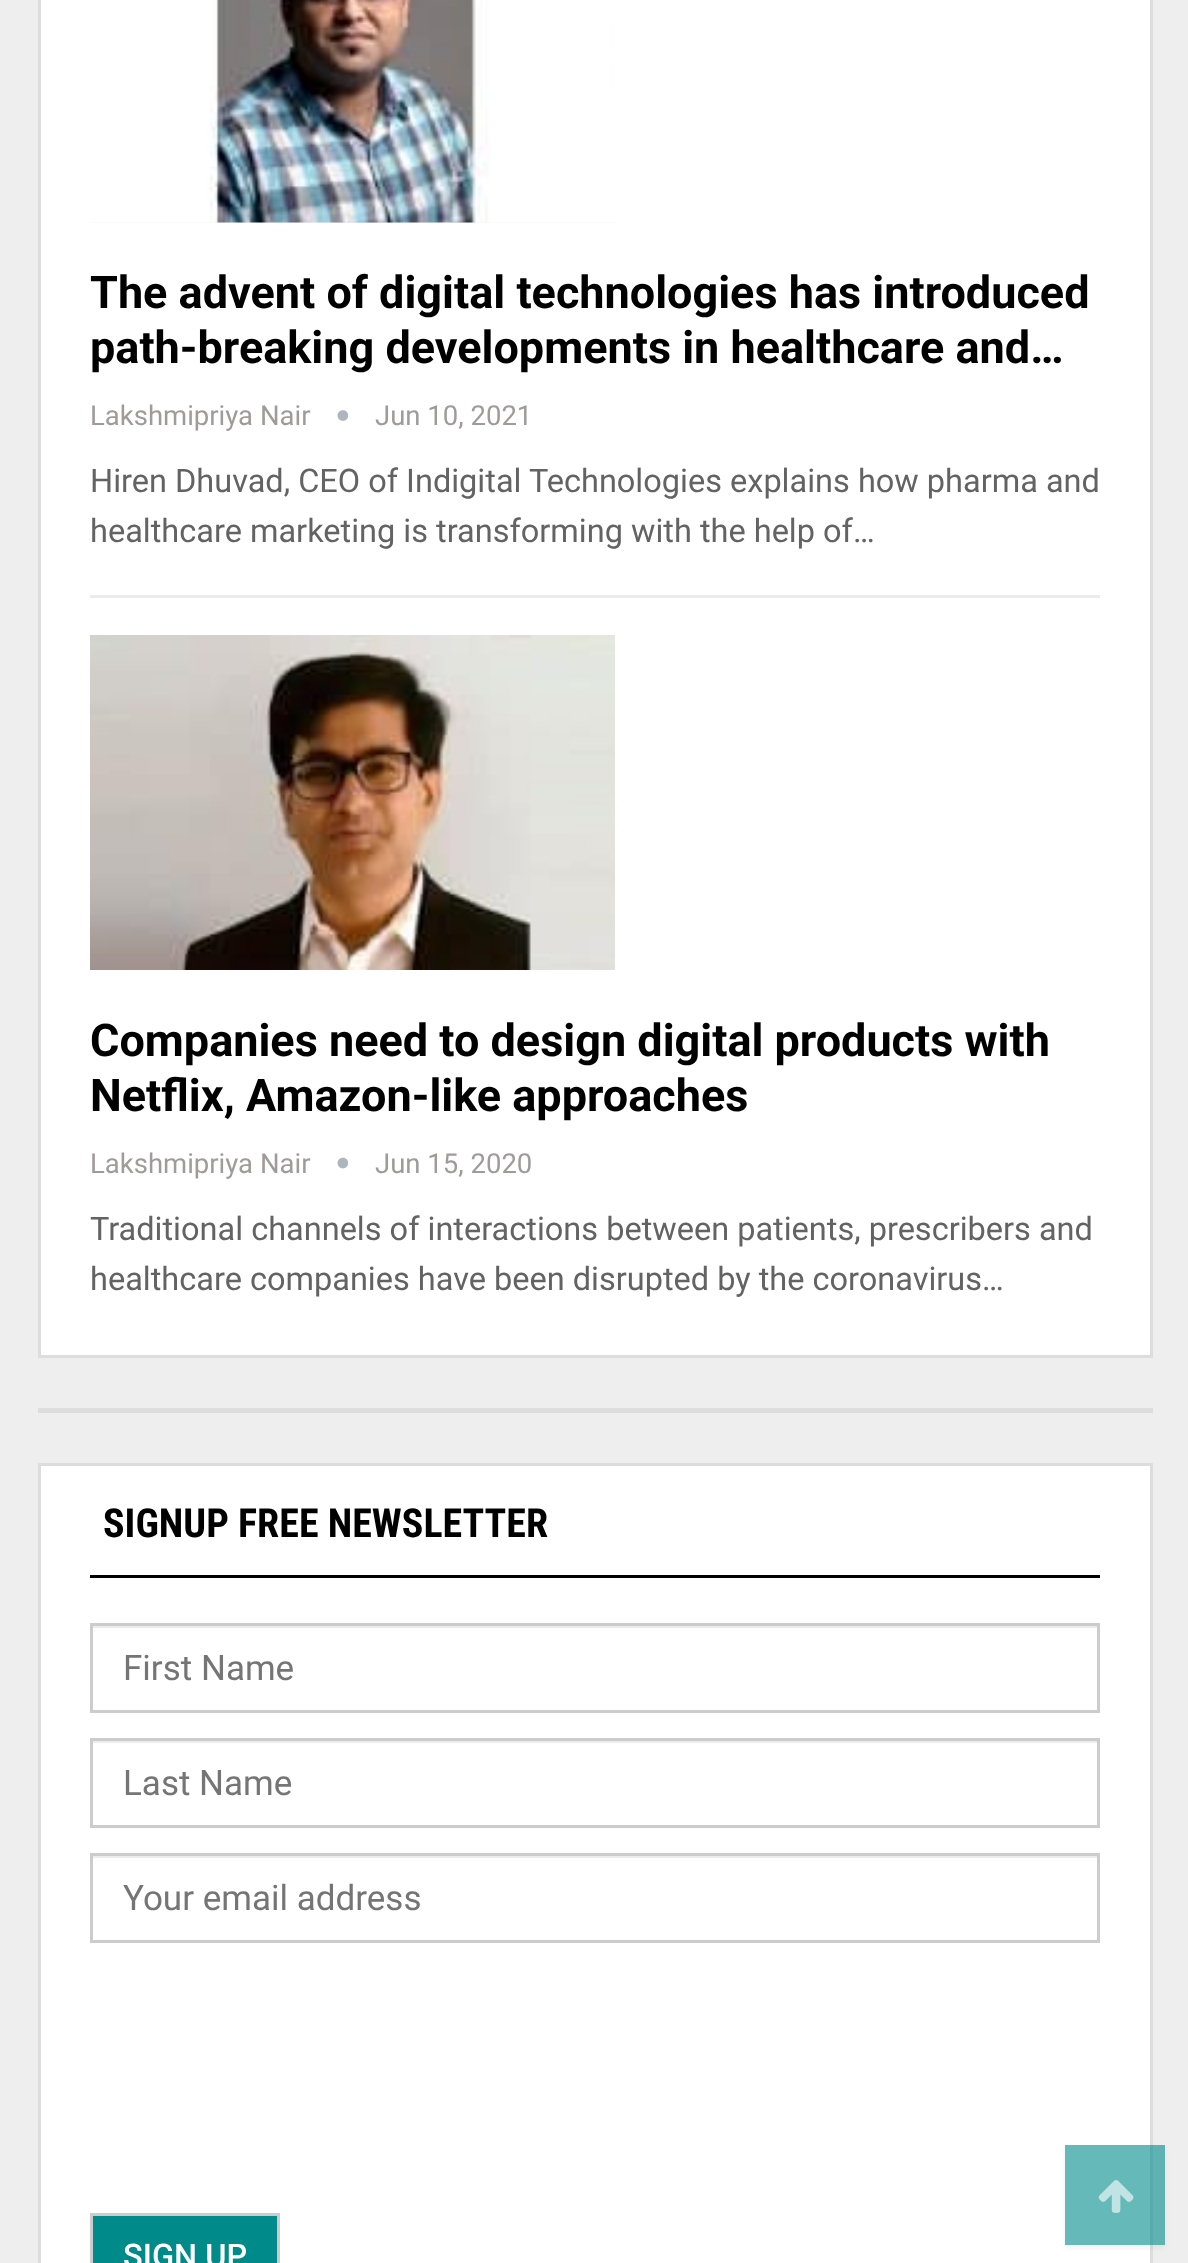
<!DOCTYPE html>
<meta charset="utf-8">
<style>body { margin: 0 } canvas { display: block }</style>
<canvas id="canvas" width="1188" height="2263"></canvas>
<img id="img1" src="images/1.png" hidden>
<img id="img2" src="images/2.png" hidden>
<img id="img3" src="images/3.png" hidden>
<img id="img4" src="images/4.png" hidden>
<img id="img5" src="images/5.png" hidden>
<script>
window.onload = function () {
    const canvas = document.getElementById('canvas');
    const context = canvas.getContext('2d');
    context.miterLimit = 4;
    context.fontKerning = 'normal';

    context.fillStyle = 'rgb(238, 238, 238)';
    context.fillRect(0, 0, 1188, 2263);
    context.fillStyle = 'rgb(255, 255, 255)';
    context.beginPath();
    context.rect(39.5, -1.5, 1112, 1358);
    context.fill();
    context.strokeStyle = 'rgb(221, 221, 221)';
    context.lineWidth = 3;
    context.stroke();
    context.fillStyle = 'rgb(235, 235, 235)';
    context.fillRect(90, 595, 1010, 3);
    context.fillStyle = 'rgb(245, 245, 245)';
    context.fillRect(90, 222, 525, 1);
    context.drawImage(document.getElementById('img1'), 90, 0, 525, 223);
    context.drawImage(document.getElementById('img2'), 337, 410, 11, 11);
    context.drawImage(document.getElementById('img3'), 90, 635, 525, 335);
    context.drawImage(document.getElementById('img4'), 337, 1157, 11, 12);
    context.fillStyle = 'rgb(221, 221, 221)';
    context.fillRect(38, 1408, 1115, 5);
    context.fillStyle = 'rgb(255, 255, 255)';
    context.beginPath();
    context.rect(39.5, 1464.5, 1112, 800);
    context.fill();
    context.stroke();
    context.fillStyle = 'rgb(0, 0, 0)';
    context.fillRect(90, 1575, 1010, 3);
    context.fillStyle = 'rgb(236, 236, 236)';
    context.fillRect(93, 1626, 1005, 2);
    context.strokeStyle = 'rgb(204, 204, 204)';
    context.strokeRect(91.5, 1624.5, 1007, 87);
    context.fillRect(93, 1741, 1005, 2);
    context.strokeRect(91.5, 1739.5, 1007, 87);
    context.fillRect(93, 1856, 1005, 2);
    context.strokeRect(91.5, 1854.5, 1007, 87);
    context.fillStyle = 'rgb(0, 139, 139)';
    context.beginPath();
    context.rect(91.5, 2214.5, 187, 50);
    context.fill();
    context.stroke();
    context.save();
    context.beginPath();
    context.moveTo(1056, 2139);
    context.lineTo(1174, 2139);
    context.lineTo(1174, 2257);
    context.lineTo(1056, 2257);
    context.closePath();
    context.moveTo(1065, 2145);
    context.lineTo(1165, 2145);
    context.lineTo(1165, 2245);
    context.lineTo(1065, 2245);
    context.closePath();
    context.clip('evenodd');
    context.fillStyle = 'rgba(0, 0, 0, 0.05)';
    context.filter = 'blur(2.5px)';
    context.beginPath();
    context.rect(1065, 2148, 100, 100);
    context.fill();
    context.filter = 'none';
    context.restore();
    context.fillStyle = 'rgba(0, 139, 139, 0.6)';
    context.fillRect(1065, 2145, 100, 100);
    context.drawImage(document.getElementById('img5'), 1098, 2180, 36, 33);
    context.font = 'bold 45px Roboto';
    context.fillStyle = 'rgb(0, 0, 0)';
    context.fillText('The advent of digital technologies has introduced', 90, 308);
    context.fillText('path-breaking developments in healthcare and…', 90, 363);
    context.font = '27.5px Roboto';
    context.fillStyle = 'rgb(160, 155, 155)';
    context.fillText('Lakshmipriya Nair', 90, 425);
    context.fillText('Jun 10, 2021', 375, 425);
    context.font = '32.5px Roboto';
    context.fillStyle = 'rgb(99, 99, 99)';
    context.fillText('Hiren Dhuvad, CEO of Indigital Technologies explains how pharma and', 90, 492);
    context.fillText('healthcare marketing is transforming with the help of…', 90, 542);
    context.font = 'bold 45px Roboto';
    context.fillStyle = 'rgb(0, 0, 0)';
    context.fillText('Companies need to design digital products with', 90, 1056);
    context.fillText('Netflix, Amazon-like approaches', 90, 1111);
    context.font = '27.5px Roboto';
    context.fillStyle = 'rgb(160, 155, 155)';
    context.fillText('Lakshmipriya Nair', 90, 1173);
    context.fillText('Jun 15, 2020', 375, 1173);
    context.font = '32.5px Roboto';
    context.fillStyle = 'rgb(99, 99, 99)';
    context.fillText('Traditional channels of interactions between patients, prescribers and', 90, 1240);
    context.fillText('healthcare companies have been disrupted by the coronavirus…', 90, 1290);
    context.font = 'bold 40px Roboto Condensed';
    context.fillStyle = 'rgb(0, 0, 0)';
    context.fillText('SIGNUP FREE NEWSLETTER', 103, 1537);
    context.font = '35px Roboto';
    context.fillStyle = 'rgb(117, 117, 117)';
    context.fillText('First Name', 123, 1680);
    context.fillText('Last Name', 123, 1795);
    context.fillText('Your email address', 123, 1910);
    context.font = '500 32.5px Roboto';
    context.fillStyle = 'rgb(255, 255, 255)';
    context.fillText('SIGN UP', 123, 2267);
};
</script>
